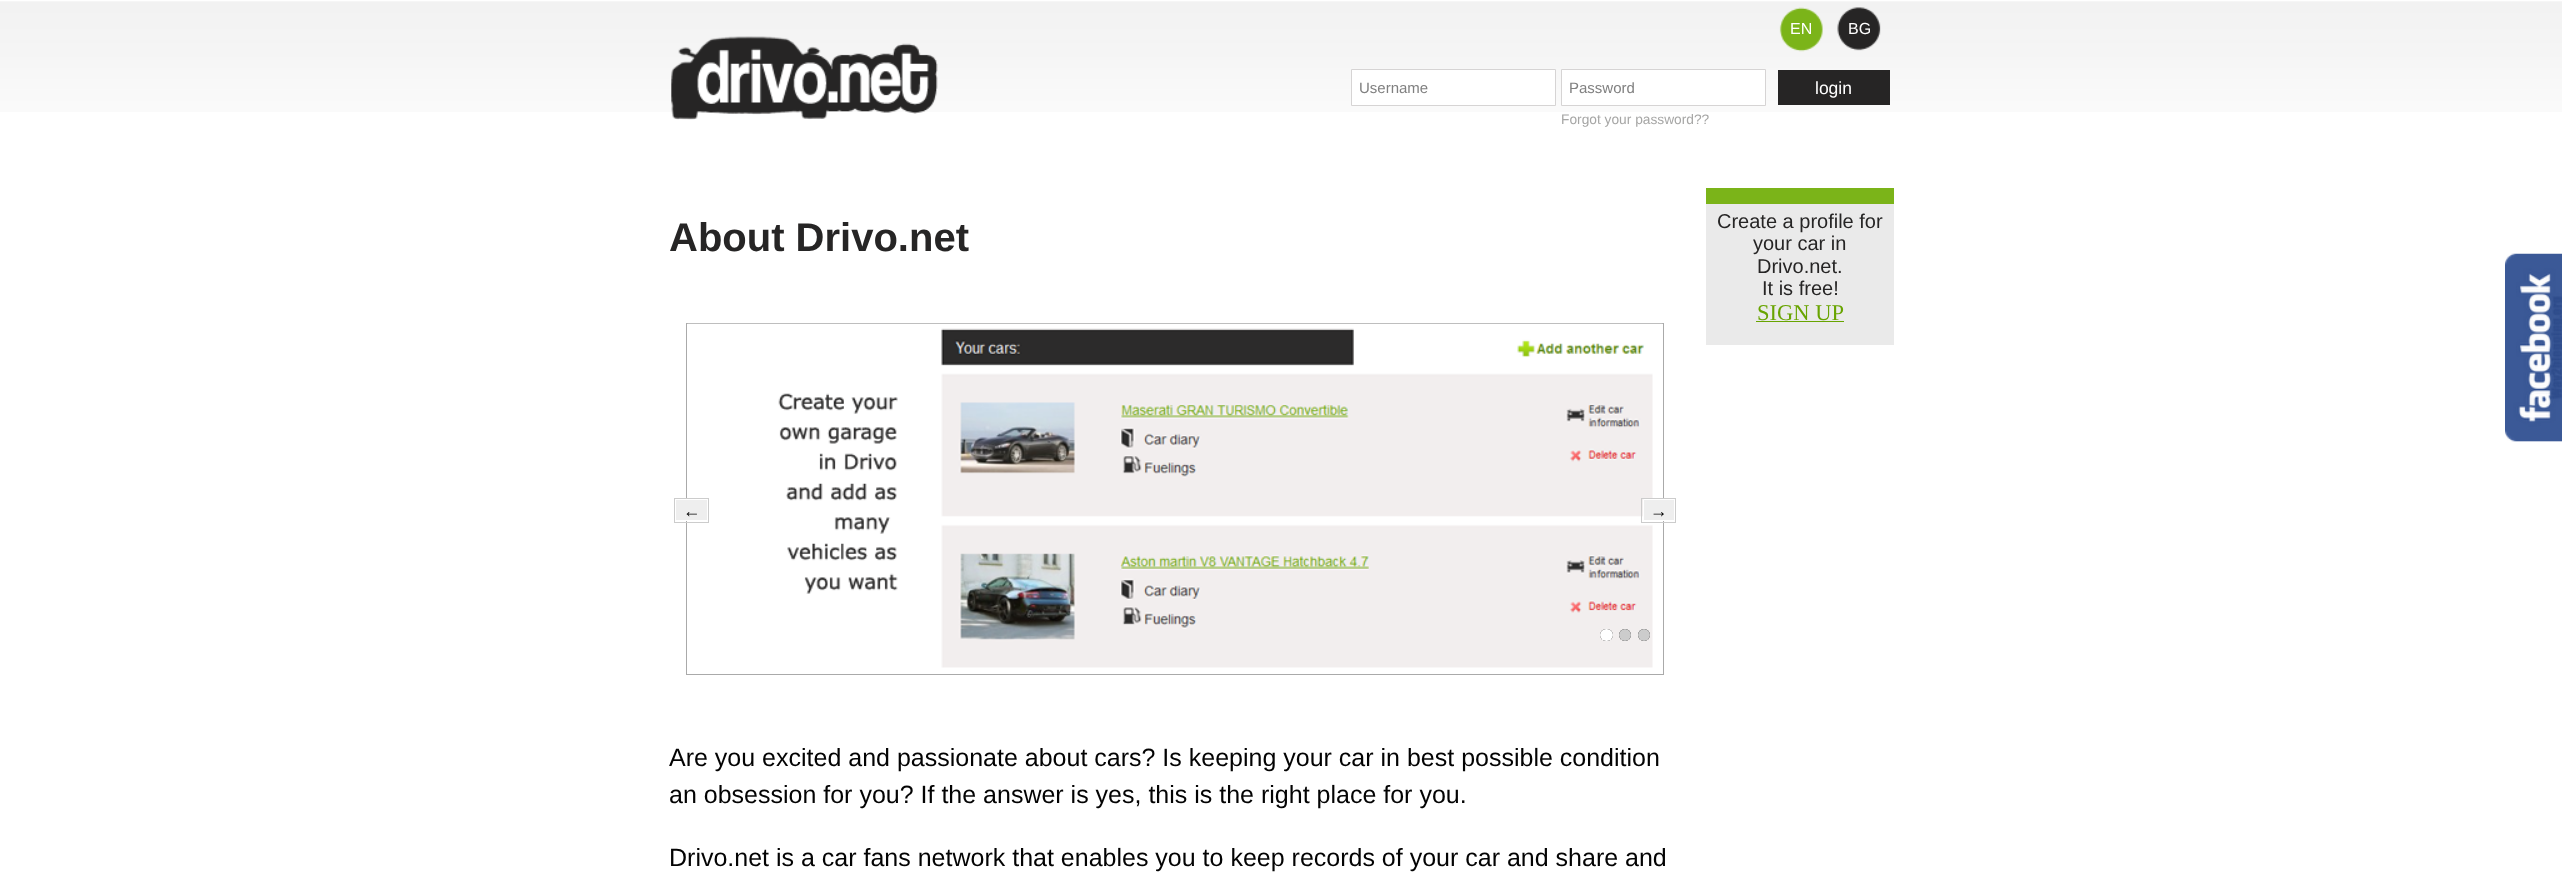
<!DOCTYPE html>
<meta charset="utf-8">
<style>body { margin: 0 } canvas { display: block }</style>
<canvas id="canvas" width="2562" height="896"></canvas>
<img id="img1" src="images/1.png" hidden>
<img id="img2" src="images/2.png" hidden>
<img id="img3" src="images/3.png" hidden>
<img id="img4" src="images/4.png" hidden>
<img id="img5" src="images/5.png" hidden>
<img id="img6" src="images/6.png" hidden>
<img id="img7" src="images/7.png" hidden>
<script>
window.onload = function () {
    const canvas = document.getElementById('canvas');
    const context = canvas.getContext('2d');
    context.miterLimit = 4;
    context.fontKerning = 'normal';

    context.fillStyle = 'rgb(255, 255, 255)';
    context.fillRect(0, 0, 2562, 896);
    context.drawImage(document.getElementById('img1'), 0, 1, 2562, 111);
    context.drawImage(document.getElementById('img2'), 671, 36, 267, 84);
    context.drawImage(document.getElementById('img3'), 1779, 7, 44, 45);
    context.drawImage(document.getElementById('img4'), 1837, 7, 44, 44);
    context.beginPath();
    context.rect(1351.5, 69.5, 204, 36);
    context.fill();
    context.strokeStyle = 'rgb(214, 212, 212)';
    context.stroke();
    context.beginPath();
    context.rect(1561.5, 69.5, 204, 36);
    context.fill();
    context.stroke();
    context.fillStyle = 'rgb(38, 37, 37)';
    context.fillRect(1778, 70, 112, 35);
    context.drawImage(document.getElementById('img5'), 778, 328, 875, 340);
    context.strokeStyle = 'rgb(170, 170, 170)';
    context.strokeRect(686.5, 323.5, 977, 351);
    context.drawImage(document.getElementById('img6'), 687, 323, 976, 345);
    context.fillStyle = 'rgb(238, 238, 238)';
    context.beginPath();
    context.rect(675.5, 499.5, 32, 21);
    context.fill();
    context.strokeStyle = 'rgb(255, 255, 255)';
    context.stroke();
    context.strokeStyle = 'rgb(204, 204, 204)';
    context.strokeRect(674.5, 498.5, 34, 24);
    context.beginPath();
    context.rect(1643.5, 499.5, 31, 21);
    context.fill();
    context.strokeStyle = 'rgb(255, 255, 255)';
    context.stroke();
    context.strokeStyle = 'rgb(204, 204, 204)';
    context.strokeRect(1641.5, 498.5, 34, 24);
    context.fillStyle = 'rgb(0, 0, 0)';
    context.filter = 'blur(0.5px)';
    context.beginPath();
    context.roundRect(1600, 629, 13, 12, 6);
    context.fill();
    context.filter = 'none';
    context.fillStyle = 'rgb(255, 255, 255)';
    context.beginPath();
    context.roundRect(1600, 629, 13, 12, 6);
    context.fill();
    context.fillStyle = 'rgb(0, 0, 0)';
    context.filter = 'blur(0.5px)';
    context.beginPath();
    context.roundRect(1619, 629, 12, 12, 6);
    context.fill();
    context.filter = 'none';
    context.fillStyle = 'rgb(204, 204, 204)';
    context.beginPath();
    context.arc(1625, 635, 6, 0, 2 * Math.PI);
    context.fill();
    context.fillStyle = 'rgb(0, 0, 0)';
    context.filter = 'blur(0.5px)';
    context.beginPath();
    context.roundRect(1638, 629, 12, 12, 6);
    context.fill();
    context.filter = 'none';
    context.fillStyle = 'rgb(204, 204, 204)';
    context.beginPath();
    context.arc(1644, 635, 6, 0, 2 * Math.PI);
    context.fill();
    context.fillStyle = 'rgb(123, 180, 25)';
    context.fillRect(1706, 188, 188, 16);
    context.fillStyle = 'rgb(234, 234, 234)';
    context.fillRect(1706, 204, 188, 141);
    context.fillStyle = 'rgb(104, 164, 1)';
    context.fillRect(1756, 321, 88, 1);
    context.drawImage(document.getElementById('img7'), 2505, 253, 57, 189);
    context.font = '16px Liberation Sans';
    context.fillStyle = 'rgb(255, 255, 255)';
    context.fillText('EN', 1790, 34);
    context.fillText('BG', 1848, 34);
    context.font = '15px Liberation Sans';
    context.fillStyle = 'rgb(128, 128, 128)';
    context.fillText('Username', 1359, 93);
    context.fillText('Password', 1569, 93);
    context.font = '17.5px Liberation Sans';
    context.fillStyle = 'rgb(255, 255, 255)';
    context.fillText('login', 1815, 94);
    context.font = '13.75px Liberation Sans';
    context.fillStyle = 'rgb(166, 166, 165)';
    context.fillText('Forgot your password??', 1561, 124);
    context.font = 'bold 40px Liberation Sans';
    context.fillStyle = 'rgb(38, 37, 37)';
    context.fillText('About Drivo.net', 669, 251);
    context.font = '17.5px Liberation Sans';
    context.fillStyle = 'rgb(3, 3, 3)';
    context.fillText('←', 683, 517);
    context.fillText('→', 1650, 517);
    context.font = '25px Liberation Sans';
    context.fillText('Are you excited and passionate about cars? Is keeping your car in best possible condition', 669, 766);
    context.fillText('an obsession for you? If the answer is yes, this is the right place for you.', 669, 803);
    context.fillText('Drivo.net is a car fans network that enables you to keep records of your car and share and', 669, 866);
    context.font = '20px Liberation Sans';
    context.fillStyle = 'rgb(38, 37, 37)';
    context.fillText('Create a profile for', 1717, 228);
    context.fillText('your car in', 1753, 250);
    context.fillText('Drivo.net.', 1757, 273);
    context.fillText('It is free!', 1762, 295);
    context.font = '22.5px Liberation Serif';
    context.fillStyle = 'rgb(104, 164, 1)';
    context.fillText('SIGN UP', 1757, 320);
};
</script>
